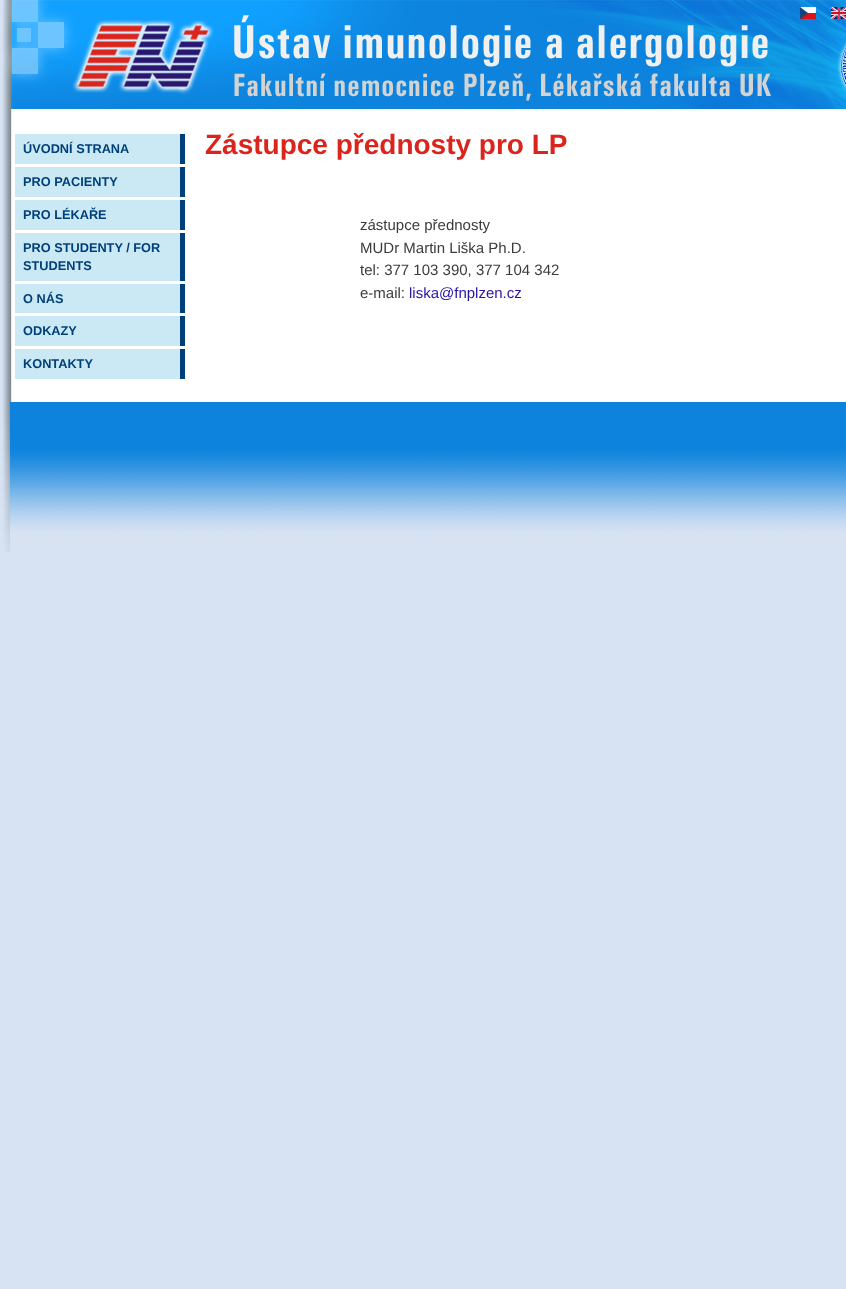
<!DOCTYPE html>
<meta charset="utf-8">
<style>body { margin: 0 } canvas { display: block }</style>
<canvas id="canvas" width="846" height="1289"></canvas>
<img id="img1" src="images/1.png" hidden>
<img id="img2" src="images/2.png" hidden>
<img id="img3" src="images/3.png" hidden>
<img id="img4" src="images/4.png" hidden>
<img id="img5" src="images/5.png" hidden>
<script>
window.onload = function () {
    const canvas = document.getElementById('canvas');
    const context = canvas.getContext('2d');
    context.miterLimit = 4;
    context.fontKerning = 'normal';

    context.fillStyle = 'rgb(215, 227, 243)';
    context.fillRect(0, 0, 846, 1289);
    context.drawImage(document.getElementById('img1'), 2, 0, 844, 109);
    context.drawImage(document.getElementById('img2'), 800, 7, 16, 12);
    context.drawImage(document.getElementById('img3'), 831, 7, 15, 12);
    context.drawImage(document.getElementById('img4'), 2, 109, 844, 293);
    context.fillStyle = 'rgb(203, 233, 244)';
    context.fillRect(15, 134, 165, 30);
    context.fillStyle = 'rgb(0, 64, 122)';
    context.fillRect(180, 134, 5, 30);
    context.fillStyle = 'rgb(203, 233, 244)';
    context.fillRect(15, 167, 165, 30);
    context.fillStyle = 'rgb(0, 64, 122)';
    context.fillRect(180, 167, 5, 30);
    context.fillStyle = 'rgb(203, 233, 244)';
    context.fillRect(15, 200, 165, 30);
    context.fillStyle = 'rgb(0, 64, 122)';
    context.fillRect(180, 200, 5, 30);
    context.fillStyle = 'rgb(203, 233, 244)';
    context.fillRect(15, 233, 165, 48);
    context.fillStyle = 'rgb(0, 64, 122)';
    context.fillRect(180, 233, 5, 48);
    context.fillStyle = 'rgb(203, 233, 244)';
    context.fillRect(15, 284, 165, 29);
    context.fillStyle = 'rgb(0, 64, 122)';
    context.fillRect(180, 284, 5, 29);
    context.fillStyle = 'rgb(203, 233, 244)';
    context.fillRect(15, 316, 165, 30);
    context.fillStyle = 'rgb(0, 64, 122)';
    context.fillRect(180, 316, 5, 30);
    context.fillStyle = 'rgb(203, 233, 244)';
    context.fillRect(15, 349, 165, 30);
    context.fillStyle = 'rgb(0, 64, 122)';
    context.fillRect(180, 349, 5, 30);
    context.drawImage(document.getElementById('img5'), 2, 402, 844, 150);
    context.font = 'bold 12.75px Liberation Sans';
    context.fillText('ÚVODNÍ STRANA', 23, 153);
    context.fillText('PRO PACIENTY', 23, 186);
    context.fillText('PRO LÉKAŘE', 23, 219);
    context.fillText('PRO STUDENTY / FOR', 23, 252);
    context.fillText('STUDENTS', 23, 270);
    context.fillText('O NÁS', 23, 303);
    context.fillText('ODKAZY', 23, 335);
    context.fillText('KONTAKTY', 23, 368);
    context.font = 'bold 28px Liberation Sans';
    context.fillStyle = 'rgb(218, 36, 28)';
    context.fillText('Zástupce přednosty pro LP', 205, 154);
    context.font = '15px Liberation Sans';
    context.fillStyle = 'rgb(59, 59, 59)';
    context.fillText('zástupce přednosty', 360, 230);
    context.fillText('MUDr Martin Liška Ph.D.', 360, 253);
    context.fillText('tel: 377 103 390, 377 104 342', 360, 275);
    context.fillText('e-mail:', 360, 298);
    context.fillStyle = 'rgb(39, 21, 163)';
    context.fillText('liska@fnplzen.cz', 409, 298);
};
</script>
